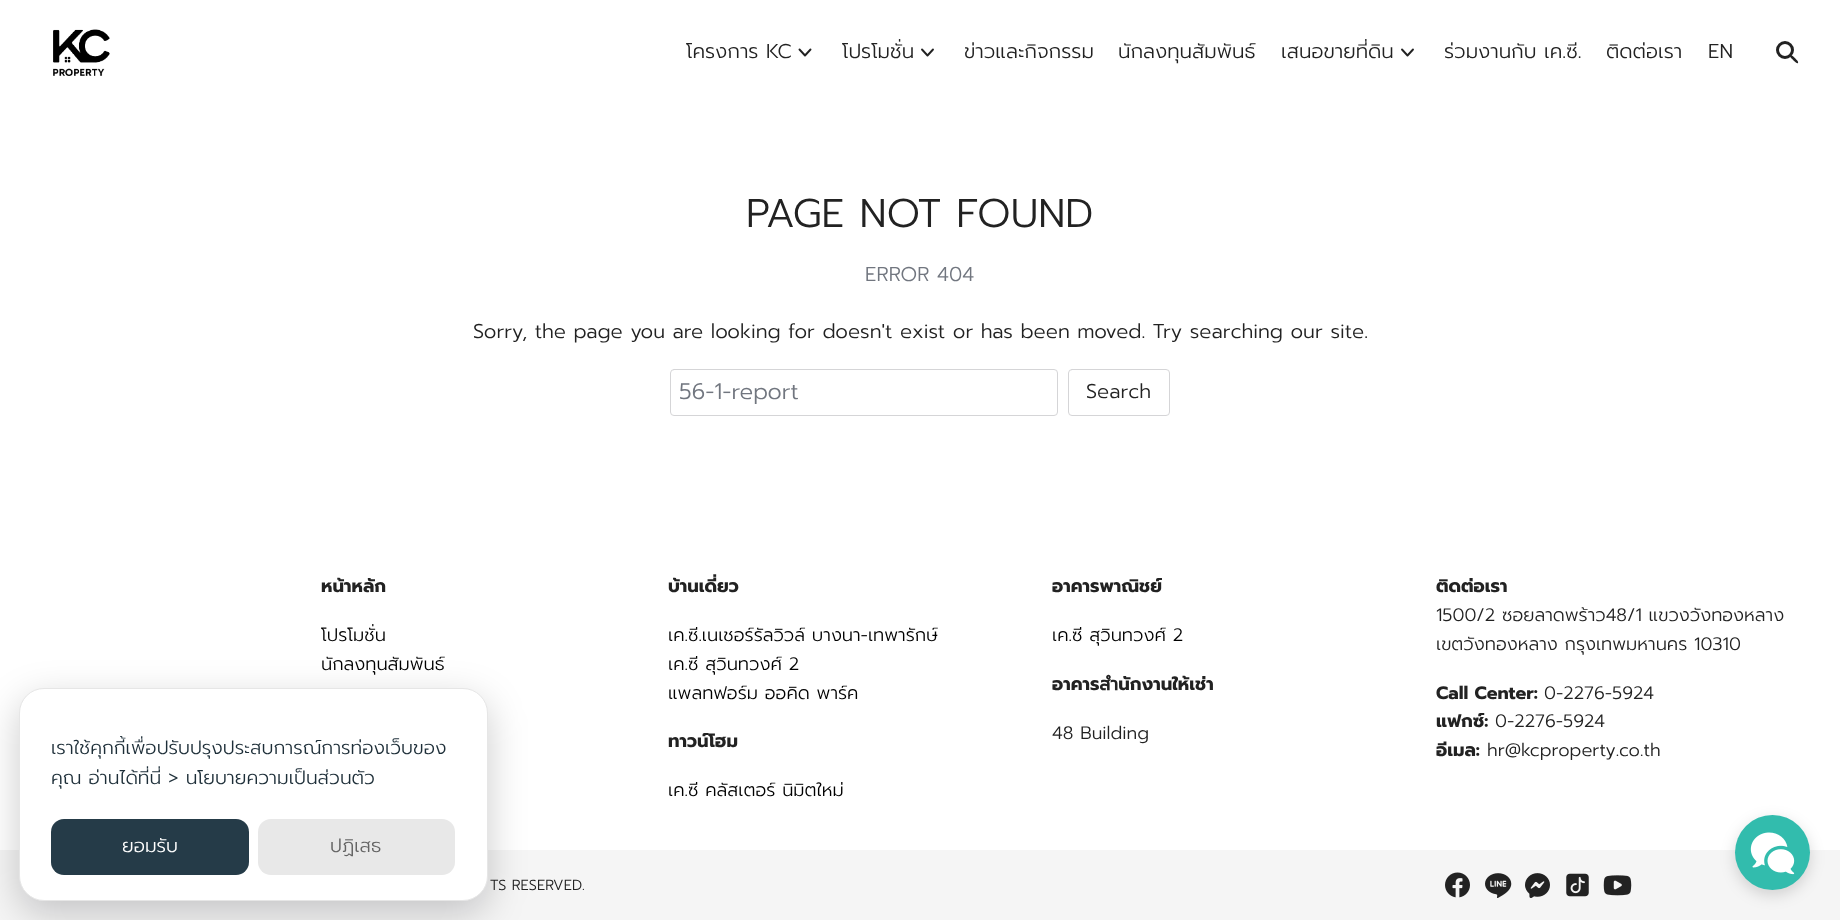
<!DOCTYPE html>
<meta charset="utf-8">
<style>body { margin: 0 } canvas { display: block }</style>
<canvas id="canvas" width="1840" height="920"></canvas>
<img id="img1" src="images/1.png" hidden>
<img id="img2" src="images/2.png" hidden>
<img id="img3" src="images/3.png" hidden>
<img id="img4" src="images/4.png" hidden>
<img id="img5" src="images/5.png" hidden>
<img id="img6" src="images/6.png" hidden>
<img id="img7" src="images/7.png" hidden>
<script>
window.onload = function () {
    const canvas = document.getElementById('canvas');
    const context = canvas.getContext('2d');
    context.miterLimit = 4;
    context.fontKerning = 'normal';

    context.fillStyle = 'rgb(255, 255, 255)';
    context.fillRect(0, 0, 1840, 920);
    context.fillStyle = 'rgb(245, 245, 245)';
    context.fillRect(0, 850, 1840, 70);
    context.fillStyle = 'rgba(2, 2, 3, 0.2)';
    context.filter = 'blur(19px)';
    context.beginPath();
    context.roundRect(19, 700, 469, 214, 25);
    context.fill();
    context.filter = 'none';
    context.fillStyle = 'rgb(255, 255, 255)';
    context.beginPath();
    context.roundRect(19.5, 688.5, 468, 212, 24.5);
    context.fill();
    context.strokeStyle = 'rgb(230, 230, 230)';
    context.stroke();
    context.fillStyle = 'rgb(37, 59, 72)';
    context.beginPath();
    context.roundRect(51, 819, 198, 56, 13);
    context.fill();
    context.fillStyle = 'rgb(232, 232, 232)';
    context.beginPath();
    context.roundRect(258, 819, 197, 56, 13);
    context.fill();
    context.drawImage(document.getElementById('img1'), 53, 29, 57, 47);
    context.beginPath();
    context.moveTo(799.5, 49.5);
    context.lineTo(805, 55.5);
    context.lineTo(810.5, 49.5);
    context.strokeStyle = 'rgb(34, 34, 34)';
    context.lineWidth = 1.9;
    context.lineCap = 'round';
    context.lineJoin = 'round';
    context.stroke();
    context.beginPath();
    context.moveTo(922, 49.5);
    context.lineTo(927.5, 55.5);
    context.lineTo(933, 49.5);
    context.stroke();
    context.beginPath();
    context.moveTo(1402, 49.5);
    context.lineTo(1407.5, 55.5);
    context.lineTo(1413, 49.5);
    context.stroke();
    context.fillStyle = 'rgb(34, 34, 34)';
    context.beginPath();
    context.moveTo(1790.5, 55.5);
    context.bezierCurveTo(1792, 54, 1794, 57.5, 1795, 58);
    context.bezierCurveTo(1795.5, 59, 1799, 61.5, 1798, 63);
    context.bezierCurveTo(1796.5, 64, 1794, 60.5, 1793, 60);
    context.bezierCurveTo(1792.5, 59, 1789, 57, 1790.5, 55.5);
    context.closePath();
    context.fill();
    context.beginPath();
    context.arc(1785, 50, 7.5, 0, 2 * Math.PI);
    context.lineWidth = 3;
    context.stroke();
    context.beginPath();
    context.roundRect(670.5, 369.5, 387, 46, 3.5);
    context.strokeStyle = 'rgb(213, 213, 215)';
    context.lineWidth = 1;
    context.lineJoin = 'miter';
    context.stroke();
    context.beginPath();
    context.roundRect(1068.5, 369.5, 101, 46, 3.5);
    context.stroke();
    context.drawImage(document.getElementById('img2'), 1445, 872, 25, 26);
    context.drawImage(document.getElementById('img3'), 1485, 873, 27, 25);
    context.drawImage(document.getElementById('img4'), 1525, 873, 25, 25);
    context.drawImage(document.getElementById('img5'), 1566, 873, 23, 24);
    context.drawImage(document.getElementById('img6'), 1603, 875, 29, 21);
    context.fillStyle = 'rgba(0, 0, 0, 0.15)';
    context.filter = 'blur(7.5px)';
    context.beginPath();
    context.roundRect(1735, 820, 75, 75, 37.5);
    context.fill();
    context.filter = 'none';
    context.fillStyle = 'rgb(50, 188, 173)';
    context.beginPath();
    context.arc(1772.5, 852.5, 37.5, 0, 2 * Math.PI);
    context.fill();
    context.drawImage(document.getElementById('img7'), 1750, 832, 45, 43);
    context.font = '300 18.75px Prompt';
    context.fillStyle = 'rgb(29, 46, 56)';
    context.fillText('เราใช้คุกกี้เพื่อปรับปรุงประสบการณ์การท่องเว็บของ', 51, 754);
    context.fillText('คุณ อ่านได้ที่นี่ > นโยบายความเป็นส่วนตัว', 51, 784);
    context.fillStyle = 'rgb(255, 255, 255)';
    context.fillText('ยอมรับ', 122, 852);
    context.fillStyle = 'rgb(99, 99, 99)';
    context.fillText('ปฏิเสธ', 330, 852);
    context.font = '300 20px Prompt';
    context.fillStyle = 'rgb(34, 34, 34)';
    context.fillText('โครงการ KC', 686, 58);
    context.fillText('โปรโมชั่น', 842, 58);
    context.fillText('ข่าวและกิจกรรม', 964, 58);
    context.fillText('นักลงทุนสัมพันธ์', 1118, 58);
    context.fillText('เสนอขายที่ดิน', 1281, 58);
    context.fillText('ร่วมงานกับ เค.ซี.', 1444, 58);
    context.fillText('ติดต่อเรา', 1606, 58);
    context.fillText('EN', 1708, 58);
    context.font = '300 40px Prompt';
    context.fillText('PAGE NOT FOUND', 746, 227);
    context.font = '300 20px Prompt';
    context.fillStyle = 'rgb(113, 118, 127)';
    context.fillText('ERROR 404', 865, 281);
    context.fillStyle = 'rgb(34, 34, 34)';
    context.fillText('Sorry, the page you are looking for doesn\'t exist or has been moved. Try searching our site.', 473, 338);
    context.font = '300 22.5px Prompt';
    context.fillStyle = 'rgb(113, 118, 127)';
    context.fillText('56-1-report', 679, 399);
    context.font = '300 20px Prompt';
    context.fillStyle = 'rgb(34, 34, 34)';
    context.fillText('Search', 1086, 398);
    context.font = 'bold 18px Prompt';
    context.fillText('หน้าหลัก', 321, 592);
    context.font = '300 18px Prompt';
    context.fillStyle = 'rgb(0, 0, 0)';
    context.fillText('โปรโมชั่น', 321, 641);
    context.fillText('นักลงทุนสัมพันธ์', 321, 670);
    context.font = 'bold 18px Prompt';
    context.fillStyle = 'rgb(34, 34, 34)';
    context.fillText('บ้านเดี่ยว', 668, 592);
    context.font = '300 18px Prompt';
    context.fillStyle = 'rgb(0, 0, 0)';
    context.fillText('เค.ซี.เนเชอร์รัลวิวล์ บางนา-เทพารักษ์', 668, 641);
    context.fillText('เค.ซี สุวินทวงศ์ 2', 668, 670);
    context.fillText('แพลทฟอร์ม ออคิด พาร์ค', 668, 699);
    context.font = 'bold 18px Prompt';
    context.fillStyle = 'rgb(34, 34, 34)';
    context.fillText('ทาวน์โฮม', 668, 747);
    context.font = '300 18px Prompt';
    context.fillStyle = 'rgb(0, 0, 0)';
    context.fillText('เค.ซี คลัสเตอร์ นิมิตใหม่', 668, 796);
    context.font = 'bold 18px Prompt';
    context.fillStyle = 'rgb(34, 34, 34)';
    context.fillText('อาคารพาณิชย์', 1052, 592);
    context.font = '300 18px Prompt';
    context.fillStyle = 'rgb(0, 0, 0)';
    context.fillText('เค.ซี สุวินทวงศ์ 2', 1052, 641);
    context.font = 'bold 18px Prompt';
    context.fillStyle = 'rgb(34, 34, 34)';
    context.fillText('อาคารสำนักงานให้เช่า', 1052, 690);
    context.font = '300 18px Prompt';
    context.fillText('48 Building', 1052, 739);
    context.font = 'bold 18px Prompt';
    context.fillText('ติดต่อเรา', 1436, 592);
    context.font = '300 18px Prompt';
    context.fillText('1500/2 ซอยลาดพร้าว48/1 แขวงวังทองหลาง', 1436, 621);
    context.fillText('เขตวังทองหลาง กรุงเทพมหานคร 10310', 1436, 650);
    context.font = 'bold 18px Prompt';
    context.fillText('Call Center:', 1436, 699);
    context.font = '300 18px Prompt';
    context.fillText('0-2276-5924', 1544, 699);
    context.font = 'bold 18px Prompt';
    context.fillText('แฟกซ์:', 1436, 727);
    context.font = '300 18px Prompt';
    context.fillText('0-2276-5924', 1495, 727);
    context.font = 'bold 18px Prompt';
    context.fillText('อีเมล:', 1436, 756);
    context.font = '300 18px Prompt';
    context.fillText('hr@kcproperty.co.th', 1487, 756);
    context.font = '300 14.5px Prompt';
    context.fillText('TS RESERVED.', 490, 890);
};
</script>
